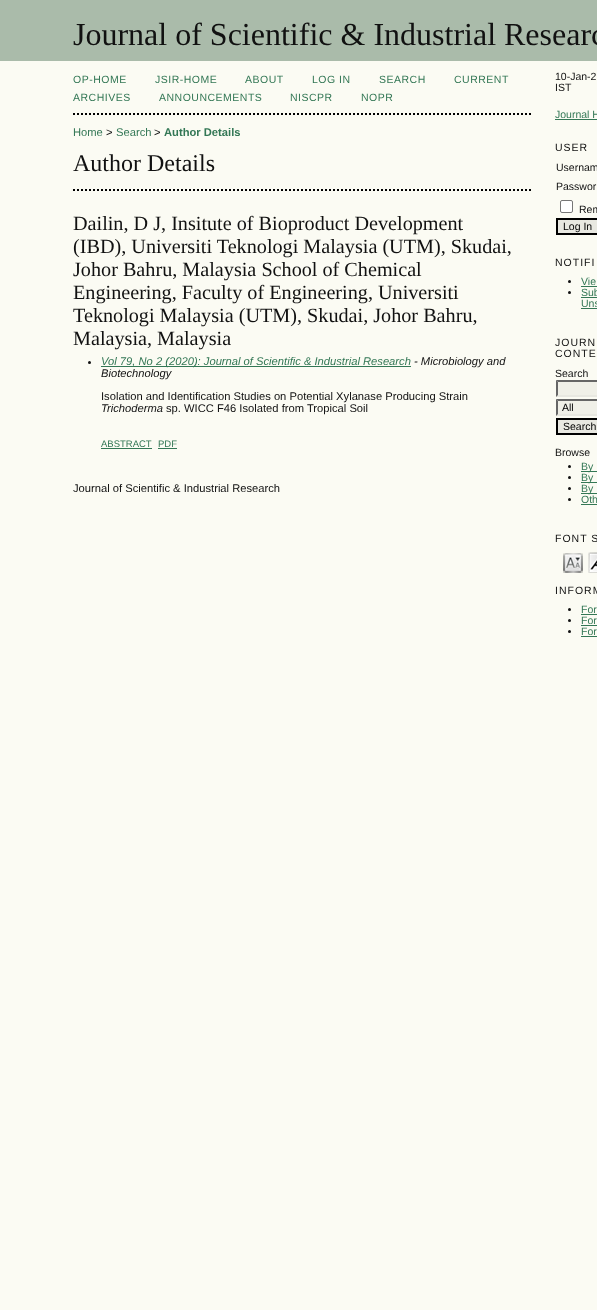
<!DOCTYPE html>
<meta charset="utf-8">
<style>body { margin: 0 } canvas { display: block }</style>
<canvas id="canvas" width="597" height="1310"></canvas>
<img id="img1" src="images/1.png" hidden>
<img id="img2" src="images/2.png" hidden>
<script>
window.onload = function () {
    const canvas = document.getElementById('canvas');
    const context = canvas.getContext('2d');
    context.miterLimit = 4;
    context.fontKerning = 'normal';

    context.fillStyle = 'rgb(251, 251, 243)';
    context.fillRect(0, 0, 597, 1310);
    context.fillStyle = 'rgb(170, 187, 170)';
    context.fillRect(0, 0, 597, 61);
    context.beginPath();
    context.moveTo(73, 114);
    context.lineTo(533, 114);
    context.strokeStyle = 'rgb(0, 0, 0)';
    context.lineWidth = 2;
    context.setLineDash([2, 2]);
    context.stroke();
    context.beginPath();
    context.moveTo(73, 190);
    context.lineTo(533, 190);
    context.stroke();
    context.fillStyle = 'rgb(17, 17, 17)';
    context.beginPath();
    context.arc(89.5, 362.5, 1.5, 0, 2 * Math.PI);
    context.fill();
    context.fillStyle = 'rgb(51, 119, 85)';
    context.fillRect(101, 366, 310, 1);
    context.fillRect(101, 448, 51, 1);
    context.fillRect(158, 448, 19, 1);
    context.fillRect(555, 119, 42, 1);
    context.fillStyle = 'rgb(255, 255, 255)';
    context.beginPath();
    context.roundRect(560.5, 200.5, 12, 12, 1.5);
    context.fill();
    context.strokeStyle = 'rgb(118, 118, 118)';
    context.lineWidth = 1;
    context.setLineDash([]);
    context.stroke();
    context.fillStyle = 'rgb(232, 232, 225)';
    context.beginPath();
    context.rect(557, 219, 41, 15);
    context.fill();
    context.strokeStyle = 'rgb(0, 0, 0)';
    context.lineWidth = 2;
    context.stroke();
    context.fillStyle = 'rgb(17, 17, 17)';
    context.beginPath();
    context.arc(569.5, 281.5, 1.5, 0, 2 * Math.PI);
    context.fill();
    context.fillStyle = 'rgb(51, 119, 85)';
    context.fillRect(581, 286, 16, 1);
    context.fillStyle = 'rgb(17, 17, 17)';
    context.beginPath();
    context.arc(569.5, 292.5, 1.5, 0, 2 * Math.PI);
    context.fill();
    context.fillStyle = 'rgb(51, 119, 85)';
    context.fillRect(581, 297, 16, 1);
    context.fillRect(581, 308, 16, 1);
    context.fillStyle = 'rgb(240, 240, 232)';
    context.fillRect(556, 380, 41, 17);
    context.fillStyle = 'rgb(102, 102, 102)';
    context.beginPath();
    context.moveTo(556, 380);
    context.lineTo(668, 380);
    context.lineTo(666, 382);
    context.lineTo(558, 382);
    context.closePath();
    context.fill();
    context.fillStyle = 'rgb(232, 232, 225)';
    context.beginPath();
    context.moveTo(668, 397);
    context.lineTo(556, 397);
    context.lineTo(558, 395);
    context.lineTo(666, 395);
    context.closePath();
    context.fill();
    context.fillStyle = 'rgb(102, 102, 102)';
    context.beginPath();
    context.moveTo(556, 397);
    context.lineTo(556, 380);
    context.lineTo(558, 382);
    context.lineTo(558, 395);
    context.closePath();
    context.fill();
    context.fillStyle = 'rgb(240, 240, 232)';
    context.fillRect(556, 399, 41, 17);
    context.fillStyle = 'rgb(102, 102, 102)';
    context.beginPath();
    context.moveTo(556, 399);
    context.lineTo(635, 399);
    context.lineTo(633, 401);
    context.lineTo(558, 401);
    context.closePath();
    context.fill();
    context.fillStyle = 'rgb(232, 232, 225)';
    context.beginPath();
    context.moveTo(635, 416);
    context.lineTo(556, 416);
    context.lineTo(558, 414);
    context.lineTo(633, 414);
    context.closePath();
    context.fill();
    context.fillStyle = 'rgb(102, 102, 102)';
    context.beginPath();
    context.moveTo(556, 416);
    context.lineTo(556, 399);
    context.lineTo(558, 401);
    context.lineTo(558, 414);
    context.closePath();
    context.fill();
    context.fillStyle = 'rgb(232, 232, 225)';
    context.beginPath();
    context.rect(557, 419, 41, 15);
    context.fill();
    context.stroke();
    context.fillStyle = 'rgb(17, 17, 17)';
    context.beginPath();
    context.arc(569.5, 466.5, 1.5, 0, 2 * Math.PI);
    context.fill();
    context.fillStyle = 'rgb(51, 119, 85)';
    context.fillRect(581, 471, 16, 1);
    context.fillStyle = 'rgb(17, 17, 17)';
    context.beginPath();
    context.arc(569.5, 477.5, 1.5, 0, 2 * Math.PI);
    context.fill();
    context.fillStyle = 'rgb(51, 119, 85)';
    context.fillRect(581, 482, 16, 1);
    context.fillStyle = 'rgb(17, 17, 17)';
    context.beginPath();
    context.arc(569.5, 488.5, 1.5, 0, 2 * Math.PI);
    context.fill();
    context.fillStyle = 'rgb(51, 119, 85)';
    context.fillRect(581, 493, 16, 1);
    context.fillStyle = 'rgb(17, 17, 17)';
    context.beginPath();
    context.arc(569.5, 499.5, 1.5, 0, 2 * Math.PI);
    context.fill();
    context.fillStyle = 'rgb(51, 119, 85)';
    context.fillRect(581, 504, 16, 1);
    context.drawImage(document.getElementById('img1'), 563, 553, 20, 20);
    context.drawImage(document.getElementById('img2'), 588, 552, 9, 21);
    context.fillStyle = 'rgb(17, 17, 17)';
    context.beginPath();
    context.arc(569.5, 609.5, 1.5, 0, 2 * Math.PI);
    context.fill();
    context.fillStyle = 'rgb(51, 119, 85)';
    context.fillRect(581, 614, 16, 1);
    context.fillStyle = 'rgb(17, 17, 17)';
    context.beginPath();
    context.arc(569.5, 620.5, 1.5, 0, 2 * Math.PI);
    context.fill();
    context.fillStyle = 'rgb(51, 119, 85)';
    context.fillRect(581, 625, 16, 1);
    context.fillStyle = 'rgb(17, 17, 17)';
    context.beginPath();
    context.arc(569.5, 631.5, 1.5, 0, 2 * Math.PI);
    context.fill();
    context.fillStyle = 'rgb(51, 119, 85)';
    context.fillRect(581, 636, 16, 1);
    context.font = '32px Liberation Serif';
    context.fillStyle = 'rgb(17, 17, 17)';
    context.fillText('Journal of Scientific & Industrial Researc', 73, 45);
    context.letterSpacing = '0.5px';
    context.font = '10.5px Liberation Sans';
    context.fillStyle = 'rgb(51, 119, 85)';
    context.fillText('OP-HOME', 73, 83);
    context.fillText('JSIR-HOME', 155, 83);
    context.fillText('ABOUT', 245, 83);
    context.fillText('LOG IN', 312, 83);
    context.fillText('SEARCH', 379, 83);
    context.fillText('CURRENT', 454, 83);
    context.fillText('ARCHIVES', 73, 101);
    context.fillText('ANNOUNCEMENTS', 159, 101);
    context.fillText('NISCPR', 290, 101);
    context.fillText('NOPR', 361, 101);
    context.letterSpacing = '0px';
    context.font = '11.2px Liberation Sans';
    context.fillText('Home', 73, 136);
    context.fillStyle = 'rgb(17, 17, 17)';
    context.fillText('>', 106, 136);
    context.fillStyle = 'rgb(51, 119, 85)';
    context.fillText('Search', 116, 136);
    context.fillStyle = 'rgb(17, 17, 17)';
    context.fillText('>', 154, 136);
    context.font = 'bold 11.2px Liberation Sans';
    context.fillStyle = 'rgb(51, 119, 85)';
    context.fillText('Author Details', 164, 136);
    context.font = '24px Liberation Serif';
    context.fillStyle = 'rgb(17, 17, 17)';
    context.fillText('Author Details', 73, 171);
    context.font = '20.2px Liberation Serif';
    context.fillText('Dailin, D J, Insitute of Bioproduct Development', 73, 230);
    context.fillText('(IBD), Universiti Teknologi Malaysia (UTM), Skudai,', 73, 253);
    context.fillText('Johor Bahru, Malaysia School of Chemical', 73, 276);
    context.fillText('Engineering, Faculty of Engineering, Universiti', 73, 299);
    context.fillText('Teknologi Malaysia (UTM), Skudai, Johor Bahru,', 73, 322);
    context.fillText('Malaysia, Malaysia', 73, 345);
    context.font = 'italic 11.2px Liberation Sans';
    context.fillStyle = 'rgb(51, 119, 85)';
    context.fillText('Vol 79, No 2 (2020): Journal of Scientific & Industrial Research', 101, 365);
    context.fillStyle = 'rgb(17, 17, 17)';
    context.fillText('- Microbiology and', 414, 365);
    context.fillText('Biotechnology', 101, 377);
    context.font = '11.2px Liberation Sans';
    context.fillText('Isolation and Identification Studies on Potential Xylanase Producing Strain', 101, 400);
    context.font = 'italic 11.2px Liberation Sans';
    context.fillText('Trichoderma', 101, 412);
    context.font = '11.2px Liberation Sans';
    context.fillText('sp. WICC F46 Isolated from Tropical Soil', 166, 412);
    context.font = '9.5px Liberation Sans';
    context.fillStyle = 'rgb(51, 119, 85)';
    context.fillText('ABSTRACT', 101, 447);
    context.fillText('PDF', 158, 447);
    context.font = '11.2px Liberation Sans';
    context.fillStyle = 'rgb(17, 17, 17)';
    context.fillText('Journal of Scientific & Industrial Research', 73, 492);
    context.font = '10.5px Liberation Sans';
    context.fillText('10-Jan-2', 555, 80);
    context.fillText('IST', 555, 91);
    context.fillStyle = 'rgb(51, 119, 85)';
    context.fillText('Journal H', 555, 118);
    context.letterSpacing = '1px';
    context.fillStyle = 'rgb(17, 17, 17)';
    context.fillText('USER', 555, 151);
    context.letterSpacing = '0px';
    context.fillText('Usernam', 556, 171);
    context.fillText('Passwor', 556, 190);
    context.fillText('Rem', 579, 213);
    context.fillStyle = 'rgb(0, 0, 0)';
    context.fillText('Log In', 563, 230);
    context.letterSpacing = '1px';
    context.fillStyle = 'rgb(17, 17, 17)';
    context.fillText('NOTIFI', 555, 266);
    context.letterSpacing = '0px';
    context.fillStyle = 'rgb(51, 119, 85)';
    context.fillText('Vie', 581, 285);
    context.fillText('Sub', 581, 296);
    context.fillText('Uns', 581, 307);
    context.letterSpacing = '1px';
    context.fillStyle = 'rgb(17, 17, 17)';
    context.fillText('JOURN', 555, 346);
    context.fillText('CONTE', 555, 357);
    context.letterSpacing = '0px';
    context.fillText('Search', 555, 377);
    context.fillStyle = 'rgb(0, 0, 0)';
    context.fillText('All', 562, 411);
    context.fillText('Search', 563, 430);
    context.fillStyle = 'rgb(17, 17, 17)';
    context.fillText('Browse', 555, 456);
    context.fillStyle = 'rgb(51, 119, 85)';
    context.fillText('By', 581, 470);
    context.fillText('By', 581, 481);
    context.fillText('By', 581, 492);
    context.fillText('Oth', 581, 503);
    context.letterSpacing = '1px';
    context.fillStyle = 'rgb(17, 17, 17)';
    context.fillText('FONT S', 555, 542);
    context.fillText('INFORM', 555, 594);
    context.letterSpacing = '0px';
    context.fillStyle = 'rgb(51, 119, 85)';
    context.fillText('For', 581, 613);
    context.fillText('For', 581, 624);
    context.fillText('For', 581, 635);
};
</script>
